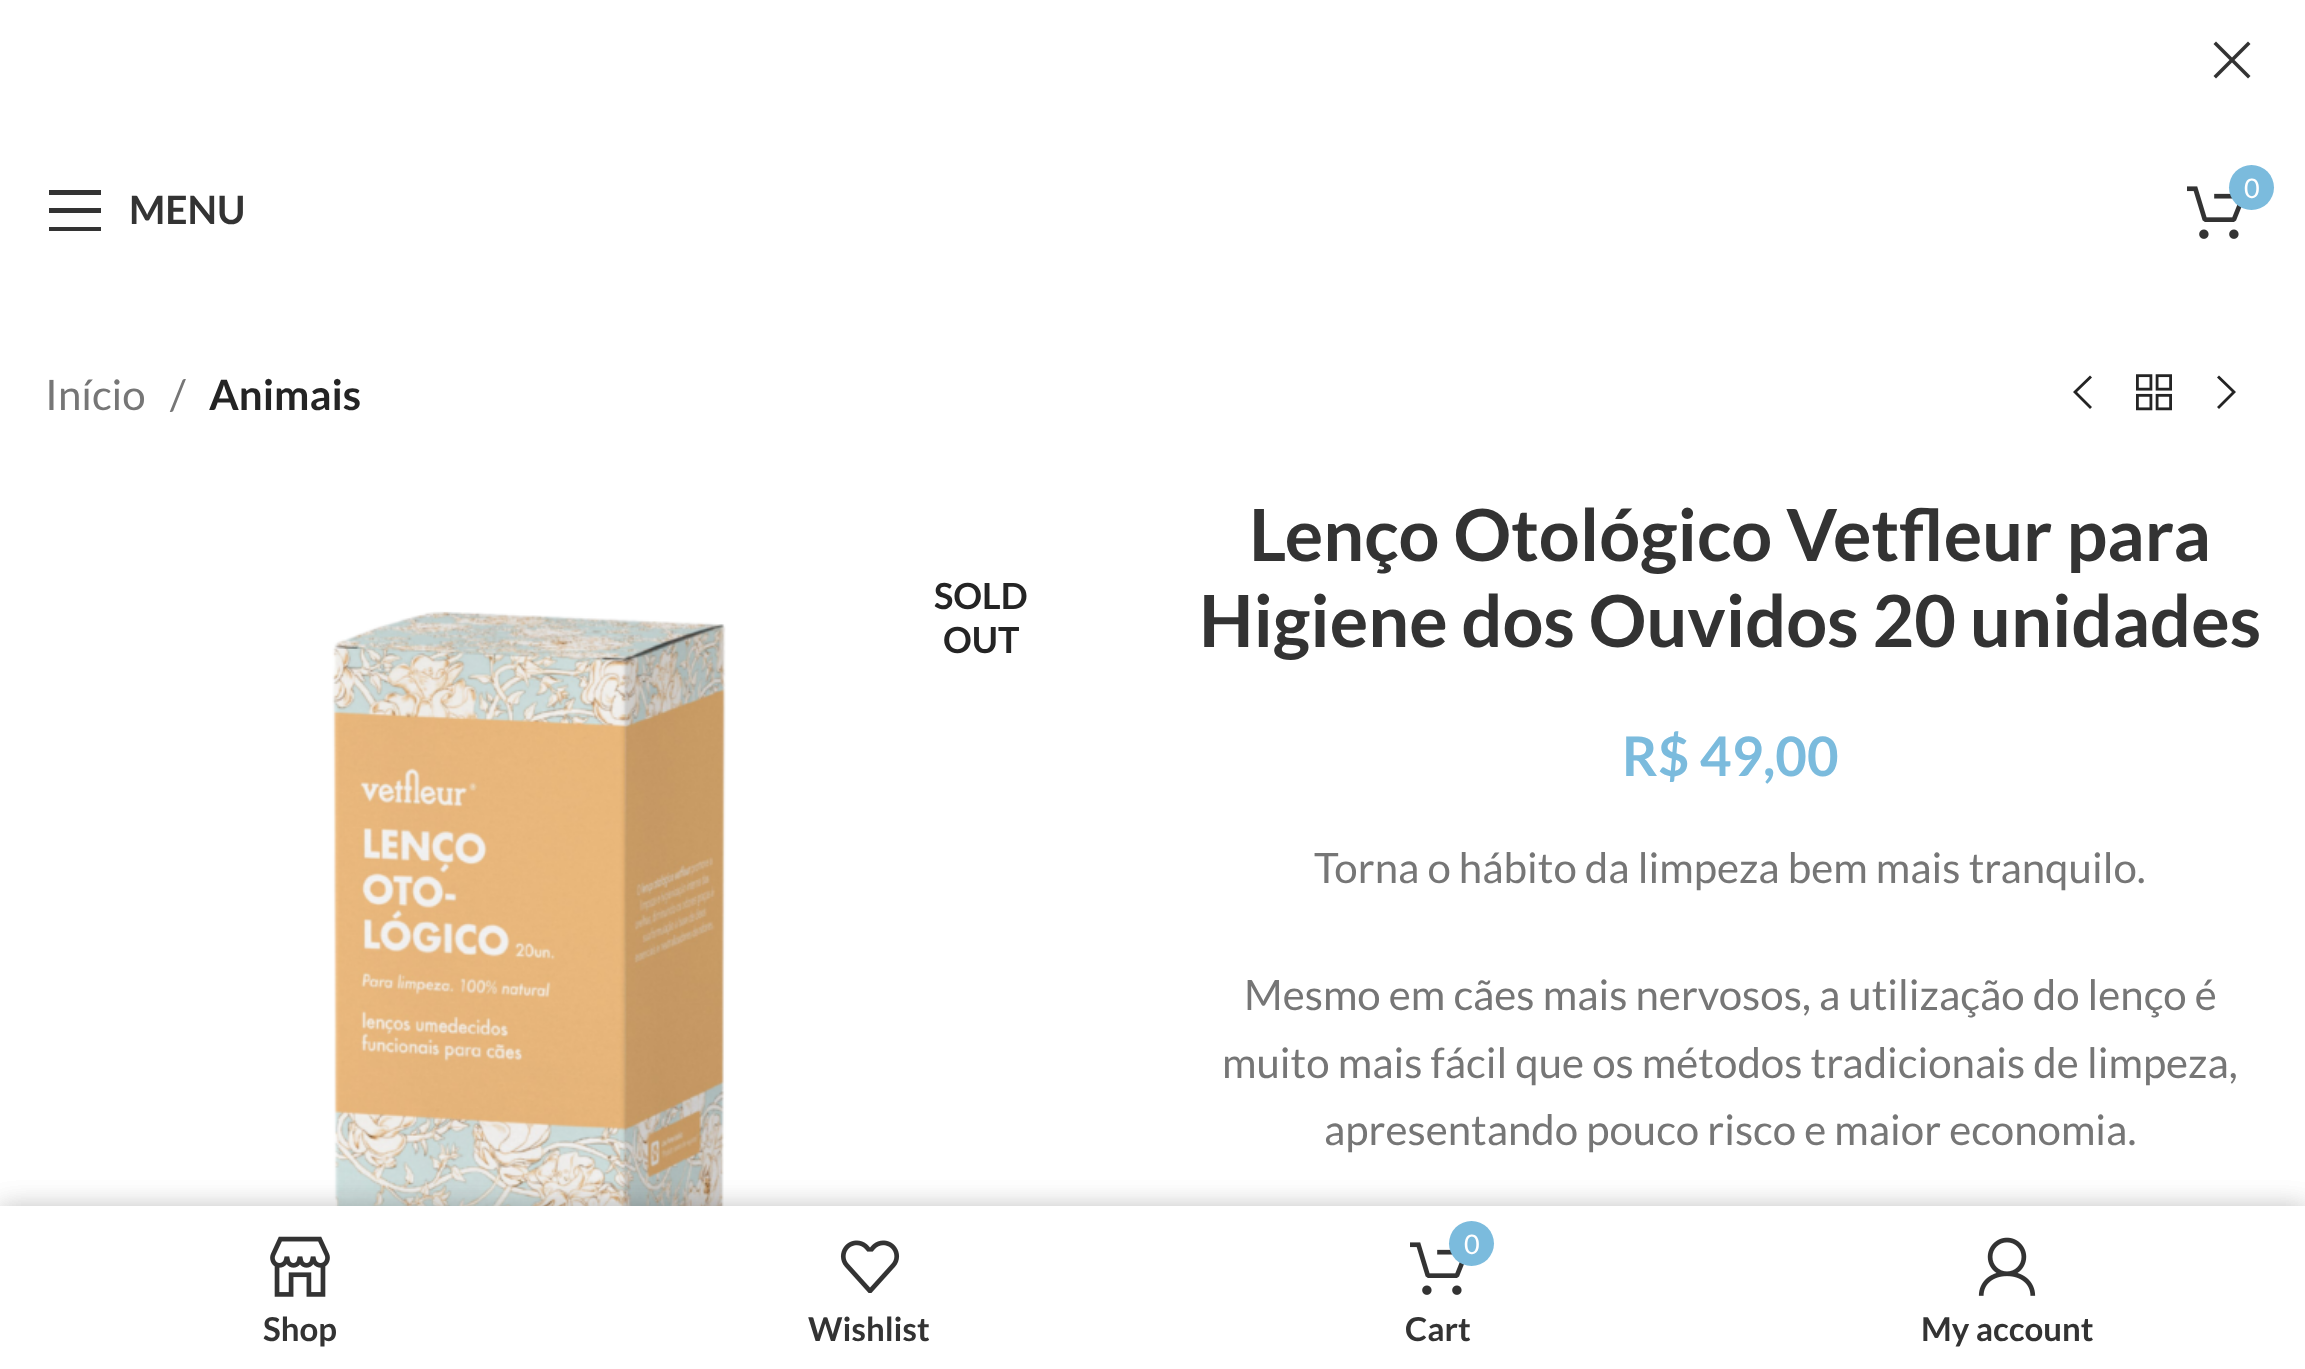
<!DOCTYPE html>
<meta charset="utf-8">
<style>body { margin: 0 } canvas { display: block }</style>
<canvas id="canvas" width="2305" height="1369"></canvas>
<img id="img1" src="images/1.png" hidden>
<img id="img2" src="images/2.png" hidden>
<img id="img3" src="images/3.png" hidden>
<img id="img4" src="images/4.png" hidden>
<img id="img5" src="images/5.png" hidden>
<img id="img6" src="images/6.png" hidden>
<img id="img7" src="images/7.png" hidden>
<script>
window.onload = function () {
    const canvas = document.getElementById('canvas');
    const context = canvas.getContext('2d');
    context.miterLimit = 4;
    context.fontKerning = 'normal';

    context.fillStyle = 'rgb(255, 255, 255)';
    context.fillRect(0, 0, 2305, 1369);
    context.fillStyle = 'rgb(51, 51, 51)';
    context.beginPath();
    context.moveTo(2213.5, 44);
    context.lineTo(2229.5, 60);
    context.lineTo(2213.5, 76);
    context.lineTo(2216, 78.5);
    context.lineTo(2232, 62.5);
    context.lineTo(2248, 78.5);
    context.lineTo(2250.5, 76);
    context.lineTo(2234.5, 60);
    context.lineTo(2250.5, 44);
    context.lineTo(2248, 41.5);
    context.lineTo(2232, 57.5);
    context.lineTo(2216, 41.5);
    context.closePath();
    context.fill();
    context.drawImage(document.getElementById('img1'), 2187, 186, 55, 53);
    context.fillStyle = 'rgb(123, 187, 221)';
    context.beginPath();
    context.arc(2251.5, 187.5, 22.5, 0, 2 * Math.PI);
    context.fill();
    context.fillStyle = 'rgb(51, 51, 51)';
    context.beginPath();
    context.moveTo(49, 195);
    context.lineTo(101, 195);
    context.lineTo(101, 190);
    context.lineTo(49, 190);
    context.closePath();
    context.moveTo(49, 213);
    context.lineTo(101, 213);
    context.lineTo(101, 208);
    context.lineTo(49, 208);
    context.closePath();
    context.moveTo(49, 231);
    context.lineTo(101, 231);
    context.lineTo(101, 227);
    context.lineTo(49, 227);
    context.closePath();
    context.fill();
    context.fillStyle = 'rgb(36, 36, 36)';
    context.beginPath();
    context.moveTo(2092, 377.5);
    context.lineTo(2090, 375.5);
    context.lineTo(2073, 392);
    context.lineTo(2090, 409);
    context.lineTo(2092, 407);
    context.lineTo(2077, 392);
    context.closePath();
    context.fill();
    context.drawImage(document.getElementById('img2'), 2136, 374, 36, 37);
    context.beginPath();
    context.moveTo(2217, 377.5);
    context.lineTo(2232, 392);
    context.lineTo(2217, 407);
    context.lineTo(2219, 409);
    context.lineTo(2236, 392);
    context.lineTo(2219, 375.5);
    context.closePath();
    context.fill();
    context.drawImage(document.getElementById('img3'), 332, 611, 394, 595);
    context.fillStyle = 'rgba(0, 0, 0, 0.12)';
    context.filter = 'blur(13.5px)';
    context.beginPath();
    context.rect(0, 1206, 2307, 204);
    context.fill();
    context.filter = 'none';
    context.filter = 'blur(13.5px)';
    context.beginPath();
    context.rect(0, 1206, 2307, 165);
    context.fill();
    context.filter = 'none';
    context.fillStyle = 'rgb(255, 255, 255)';
    context.fillRect(0, 1206, 2305, 163);
    context.drawImage(document.getElementById('img4'), 270, 1236, 60, 61);
    context.drawImage(document.getElementById('img5'), 840, 1240, 60, 53);
    context.drawImage(document.getElementById('img6'), 1410, 1242, 54, 53);
    context.fillStyle = 'rgb(123, 187, 221)';
    context.beginPath();
    context.arc(1471.5, 1243.5, 22.5, 0, 2 * Math.PI);
    context.fill();
    context.drawImage(document.getElementById('img7'), 1978, 1237, 58, 59);
    context.font = '27px Lato';
    context.fillStyle = 'rgb(255, 255, 255)';
    context.fillText('0', 2244, 198);
    context.font = 'bold 39px Lato';
    context.fillStyle = 'rgb(51, 51, 51)';
    context.fillText('MENU', 129, 224);
    context.font = '42px Lato';
    context.fillStyle = 'rgb(118, 118, 118)';
    context.fillText('Início', 45, 410);
    context.fillText('/', 170, 410);
    context.font = 'bold 42px Lato';
    context.fillStyle = 'rgb(36, 36, 36)';
    context.fillText('Animais', 209, 410);
    context.font = 'bold 36px Lato';
    context.fillText('SOLD', 934, 609);
    context.fillText('OUT', 943, 653);
    context.font = 'bold 72px Lato';
    context.fillStyle = 'rgb(51, 51, 51)';
    context.fillText('Lenço Otológico Vetfleur para', 1249, 561);
    context.fillText('Higiene dos Ouvidos 20 unidades', 1199, 647);
    context.font = 'bold 54.5px Lato';
    context.fillStyle = 'rgb(123, 187, 221)';
    context.fillText('R$ 49,00', 1622, 776);
    context.font = '42px Lato';
    context.fillStyle = 'rgb(118, 118, 118)';
    context.fillText('Torna o hábito da limpeza bem mais tranquilo.', 1314, 883);
    context.fillText('Mesmo em cães mais nervosos, a utilização do lenço é', 1244, 1010);
    context.fillText('muito mais fácil que os métodos tradicionais de limpeza,', 1222, 1078);
    context.fillText('apresentando pouco risco e maior economia.', 1324, 1145);
    context.font = 'bold 33px Lato';
    context.fillStyle = 'rgb(51, 51, 51)';
    context.fillText('Shop', 263, 1341);
    context.fillText('Wishlist', 808, 1341);
    context.font = '27px Lato';
    context.fillStyle = 'rgb(255, 255, 255)';
    context.fillText('0', 1464, 1254);
    context.font = 'bold 33px Lato';
    context.fillStyle = 'rgb(51, 51, 51)';
    context.fillText('Cart', 1405, 1341);
    context.fillText('My account', 1921, 1341);
};
</script>
